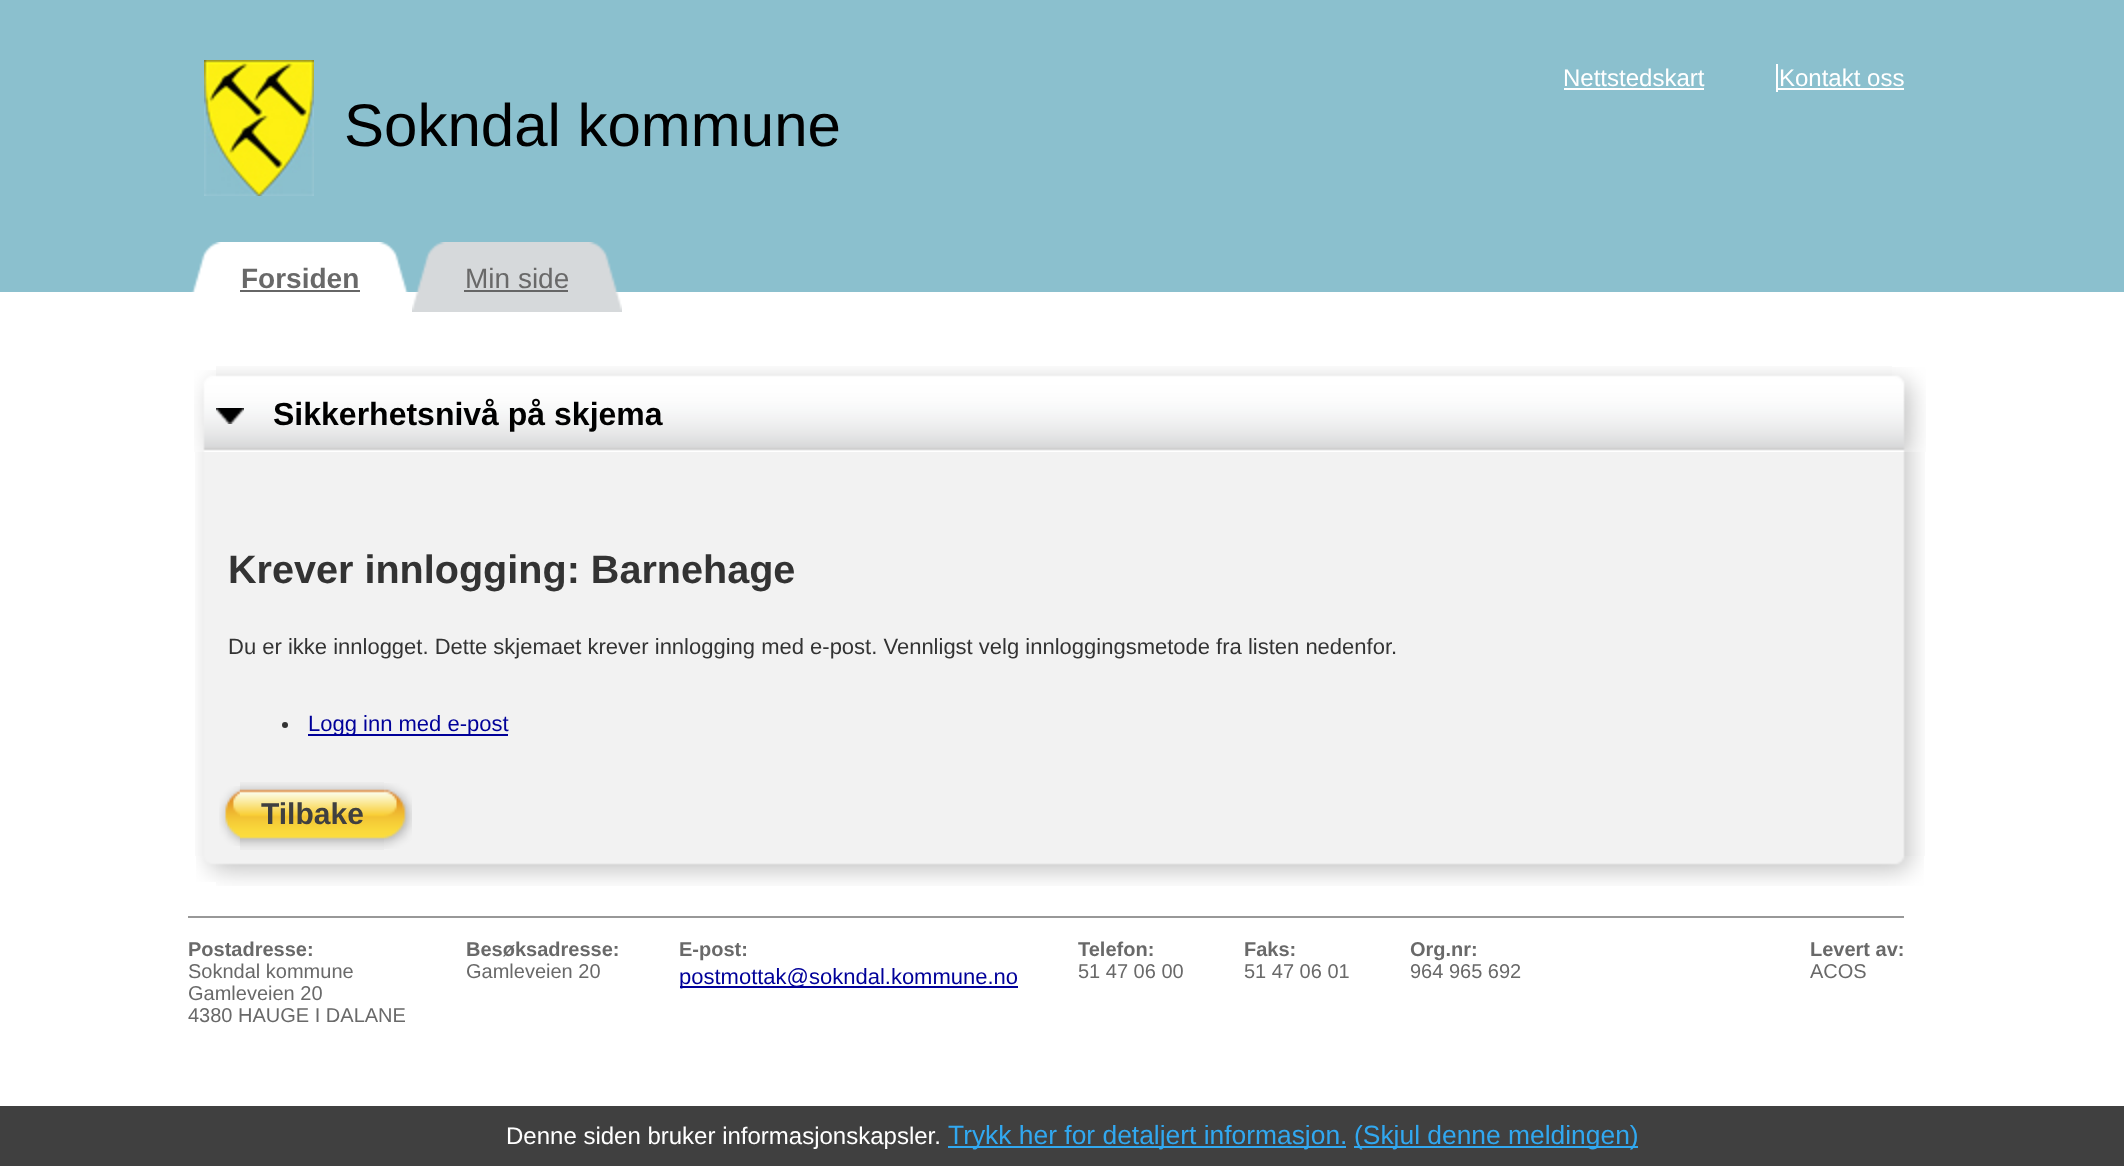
<!DOCTYPE html>
<meta charset="utf-8">
<style>body { margin: 0 } canvas { display: block }</style>
<canvas id="canvas" width="2124" height="1166"></canvas>
<img id="img1" src="images/1.png" hidden>
<img id="img2" src="images/2.png" hidden>
<img id="img3" src="images/3.png" hidden>
<img id="img4" src="images/4.png" hidden>
<img id="img5" src="images/5.png" hidden>
<img id="img6" src="images/6.png" hidden>
<img id="img7" src="images/7.png" hidden>
<img id="img8" src="images/8.png" hidden>
<img id="img9" src="images/9.png" hidden>
<img id="img10" src="images/10.png" hidden>
<img id="img11" src="images/11.png" hidden>
<img id="img12" src="images/12.png" hidden>
<img id="img13" src="images/13.png" hidden>
<img id="img14" src="images/14.png" hidden>
<img id="img15" src="images/15.png" hidden>
<script>
window.onload = function () {
    const canvas = document.getElementById('canvas');
    const context = canvas.getContext('2d');
    context.miterLimit = 4;
    context.fontKerning = 'normal';

    context.fillStyle = 'rgb(255, 255, 255)';
    context.fillRect(0, 0, 2124, 1166);
    context.fillStyle = 'rgb(139, 192, 206)';
    context.fillRect(0, 0, 2124, 292);
    context.fillStyle = 'rgb(255, 255, 255)';
    context.fillRect(1564, 88, 140, 2);
    context.fillRect(1776, 64, 2, 28);
    context.fillRect(1778, 88, 126, 2);
    context.drawImage(document.getElementById('img1'), 204, 60, 110, 136);
    context.drawImage(document.getElementById('img2'), 191, 242, 33, 50);
    context.fillRect(224, 242, 152, 50);
    context.fillStyle = 'rgb(102, 102, 102)';
    context.fillRect(240, 290, 120, 2);
    context.drawImage(document.getElementById('img3'), 376, 242, 33, 50);
    context.drawImage(document.getElementById('img4'), 412, 242, 36, 70);
    context.fillStyle = 'rgb(214, 217, 219)';
    context.fillRect(448, 242, 138, 70);
    context.fillStyle = 'rgb(102, 102, 102)';
    context.fillRect(464, 290, 104, 2);
    context.drawImage(document.getElementById('img5'), 586, 242, 36, 70);
    context.drawImage(document.getElementById('img6'), 194, 370, 22, 82);
    context.drawImage(document.getElementById('img7'), 216, 366, 1676, 85);
    context.drawImage(document.getElementById('img8'), 216, 408, 28, 16);
    context.drawImage(document.getElementById('img9'), 1892, 367, 34, 85);
    context.drawImage(document.getElementById('img10'), 195, 452, 1730, 404);
    context.fillStyle = 'rgb(51, 51, 51)';
    context.beginPath();
    context.arc(285, 725, 3, 0, 2 * Math.PI);
    context.fill();
    context.fillStyle = 'rgb(0, 0, 153)';
    context.fillRect(308, 734, 200, 2);
    context.drawImage(document.getElementById('img11'), 219, 786, 21, 60);
    context.drawImage(document.getElementById('img12'), 240, 782, 144, 68);
    context.drawImage(document.getElementById('img13'), 384, 783, 28, 66);
    context.drawImage(document.getElementById('img14'), 196, 856, 20, 26);
    context.drawImage(document.getElementById('img15'), 216, 856, 1708, 30);
    context.fillStyle = 'rgb(152, 152, 152)';
    context.fillRect(188, 916, 1716, 2);
    context.fillStyle = 'rgb(0, 0, 153)';
    context.fillRect(680, 986, 338, 2);
    context.fillStyle = 'rgb(64, 64, 64)';
    context.fillRect(0, 1106, 2124, 60);
    context.fillStyle = 'rgb(49, 168, 240)';
    context.fillRect(948, 1146, 398, 2);
    context.fillRect(1354, 1146, 284, 2);
    context.font = '24px Liberation Sans';
    context.fillStyle = 'rgb(255, 255, 255)';
    context.fillText('Nettstedskart', 1563, 86);
    context.fillText('Kontakt oss', 1779, 86);
    context.font = '60px Liberation Sans';
    context.fillStyle = 'rgb(0, 0, 0)';
    context.fillText('Sokndal kommune', 344, 146);
    context.font = 'bold 28px Liberation Sans';
    context.fillStyle = 'rgb(105, 105, 105)';
    context.fillText('Forsiden', 241, 288);
    context.font = '28px Liberation Sans';
    context.fillText('Min side', 465, 288);
    context.font = 'bold 32px Liberation Sans';
    context.fillStyle = 'rgb(0, 0, 0)';
    context.fillText('Sikkerhetsnivå på skjema', 273, 425);
    context.font = 'bold 39.6px Liberation Sans';
    context.fillStyle = 'rgb(51, 51, 51)';
    context.fillText('Krever innlogging: Barnehage', 228, 583);
    context.font = '22px Liberation Sans';
    context.fillText('Du er ikke innlogget. Dette skjemaet krever innlogging med e-post. Vennligst velg innloggingsmetode fra listen nedenfor.', 228, 654);
    context.fillStyle = 'rgb(0, 0, 153)';
    context.fillText('Logg inn med e-post', 308, 731);
    context.font = 'bold 30px Liberation Sans';
    context.fillStyle = 'rgb(64, 64, 64)';
    context.fillText('Tilbake', 261, 824);
    context.font = 'bold 20px Liberation Sans';
    context.fillStyle = 'rgb(105, 105, 105)';
    context.fillText('Postadresse:', 188, 956);
    context.font = '20px Liberation Sans';
    context.fillText('Sokndal kommune', 188, 978);
    context.fillText('Gamleveien 20', 188, 1000);
    context.fillText('4380 HAUGE I DALANE', 188, 1022);
    context.font = 'bold 20px Liberation Sans';
    context.fillText('Besøksadresse:', 466, 956);
    context.font = '20px Liberation Sans';
    context.fillText('Gamleveien 20', 466, 978);
    context.font = 'bold 20px Liberation Sans';
    context.fillText('E-post:', 679, 956);
    context.font = '22px Liberation Sans';
    context.fillStyle = 'rgb(0, 0, 153)';
    context.fillText('postmottak@sokndal.kommune.no', 679, 984);
    context.font = 'bold 20px Liberation Sans';
    context.fillStyle = 'rgb(105, 105, 105)';
    context.fillText('Telefon:', 1078, 956);
    context.font = '20px Liberation Sans';
    context.fillText('51 47 06 00', 1078, 978);
    context.font = 'bold 20px Liberation Sans';
    context.fillText('Faks:', 1244, 956);
    context.font = '20px Liberation Sans';
    context.fillText('51 47 06 01', 1244, 978);
    context.font = 'bold 20px Liberation Sans';
    context.fillText('Org.nr:', 1410, 956);
    context.font = '20px Liberation Sans';
    context.fillText('964 965 692', 1410, 978);
    context.font = 'bold 20px Liberation Sans';
    context.fillText('Levert av:', 1810, 956);
    context.font = '20px Liberation Sans';
    context.fillText('ACOS', 1810, 978);
    context.font = '24px Liberation Sans';
    context.fillStyle = 'rgb(255, 255, 255)';
    context.fillText('Denne siden bruker informasjonskapsler.', 506, 1144);
    context.font = '26.4px Liberation Sans';
    context.fillStyle = 'rgb(49, 168, 240)';
    context.fillText('Trykk her for detaljert informasjon.', 948, 1144);
    context.fillText('(Skjul denne meldingen)', 1354, 1144);
};
</script>
